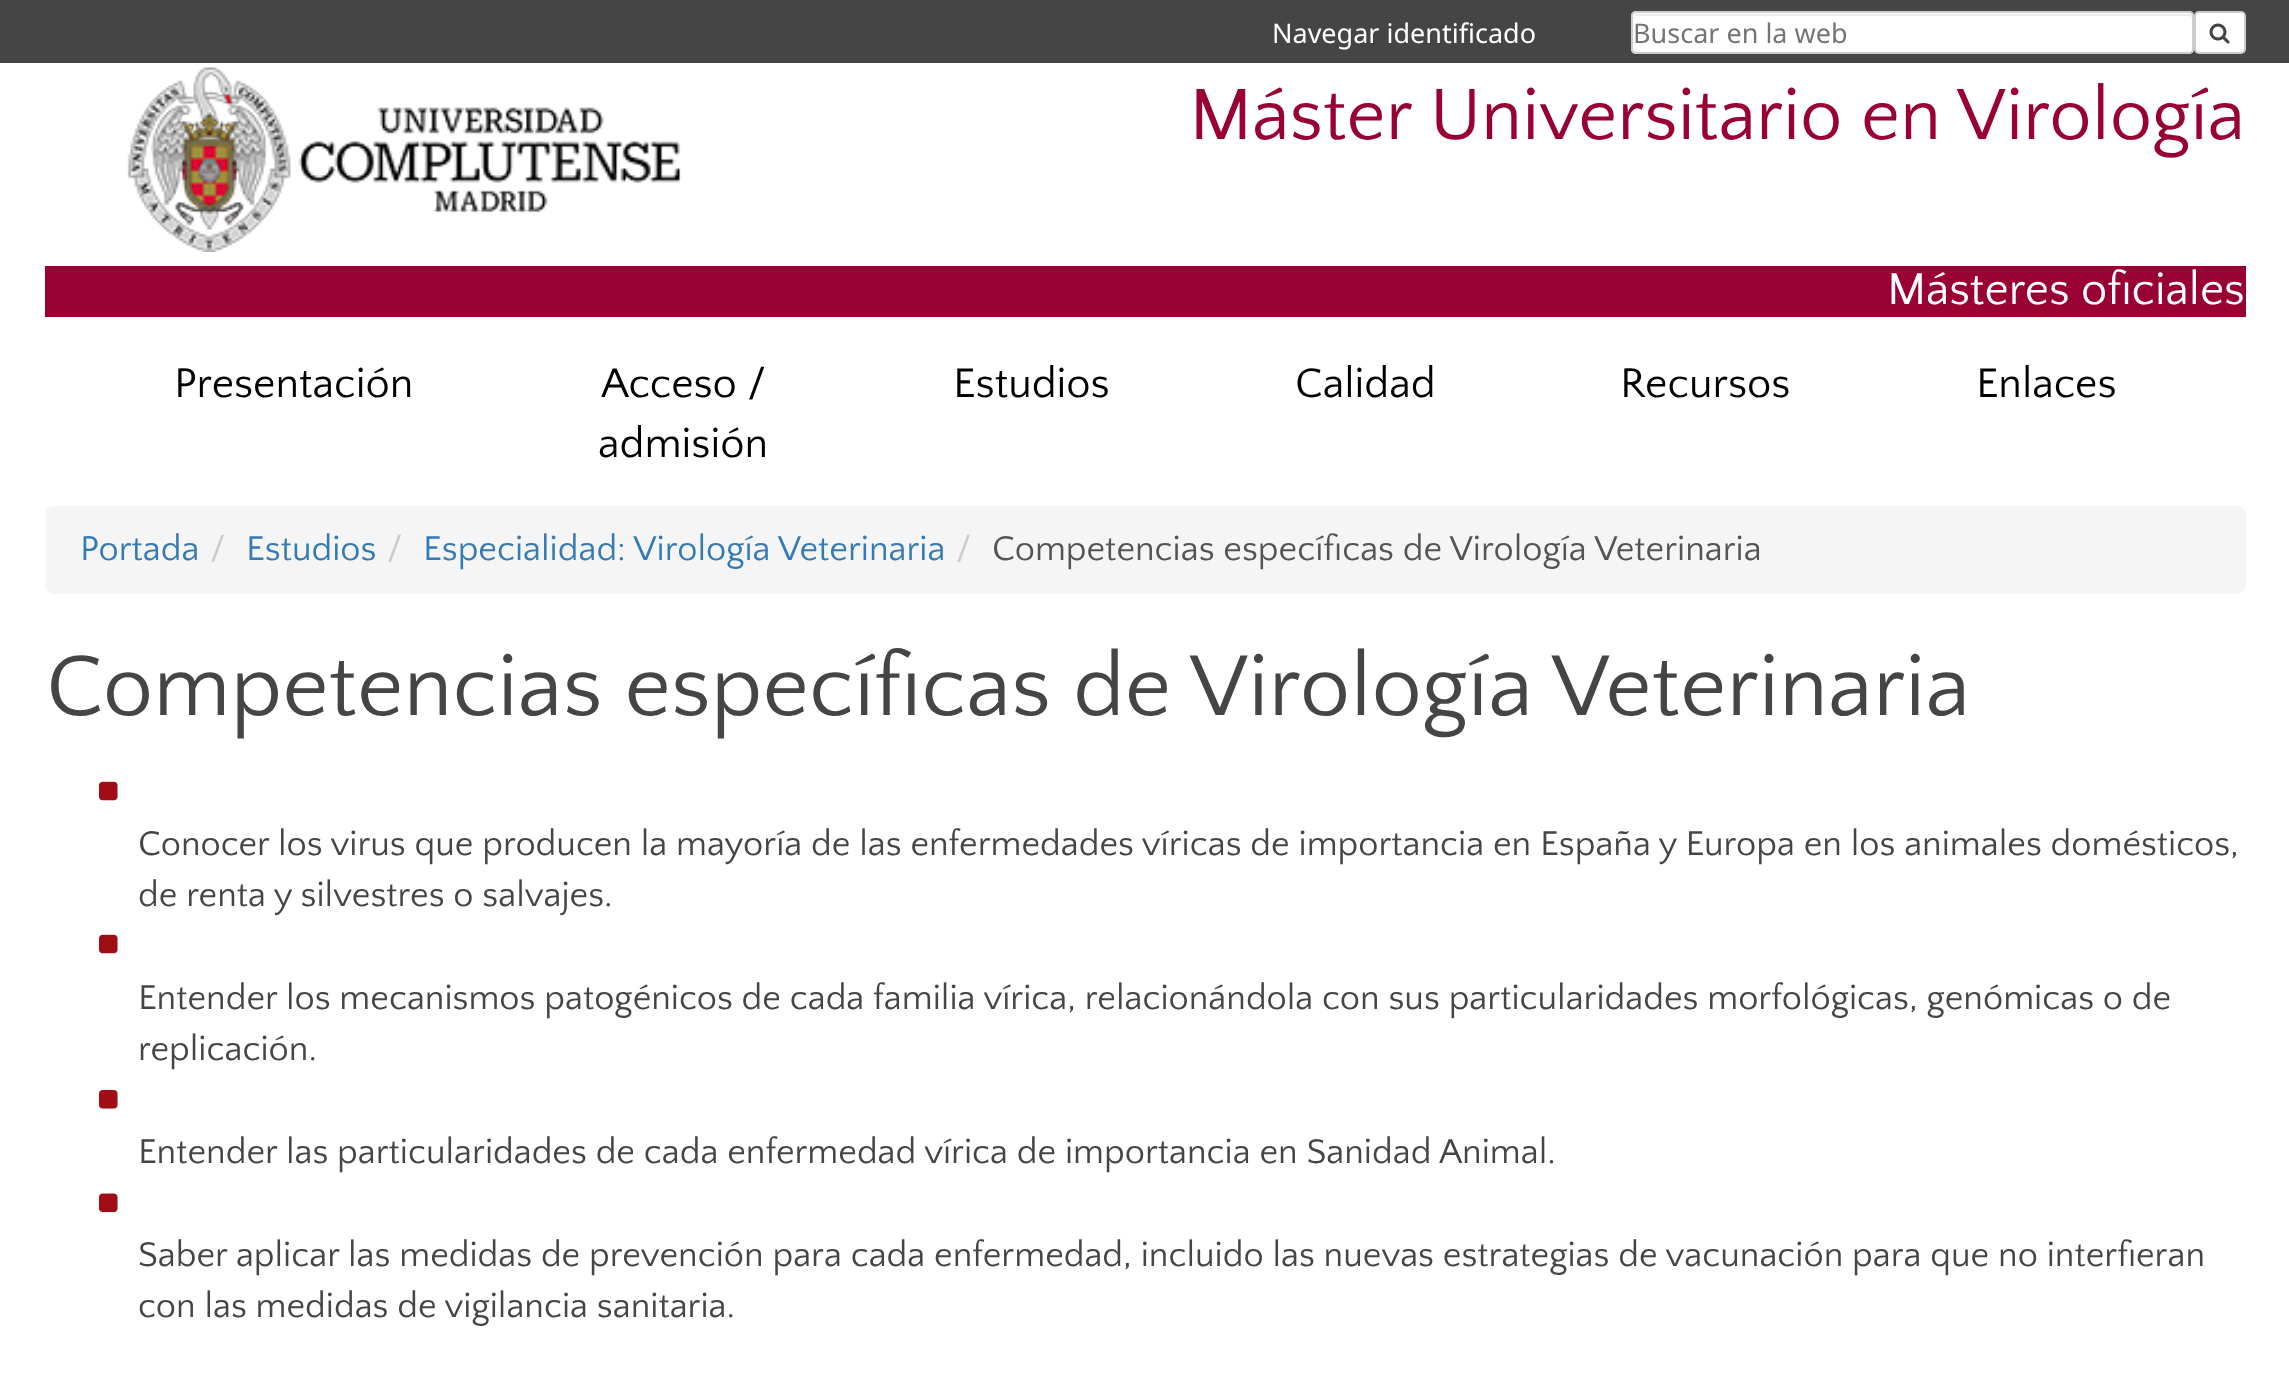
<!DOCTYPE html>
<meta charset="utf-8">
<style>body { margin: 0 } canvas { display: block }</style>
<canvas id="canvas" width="2289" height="1391"></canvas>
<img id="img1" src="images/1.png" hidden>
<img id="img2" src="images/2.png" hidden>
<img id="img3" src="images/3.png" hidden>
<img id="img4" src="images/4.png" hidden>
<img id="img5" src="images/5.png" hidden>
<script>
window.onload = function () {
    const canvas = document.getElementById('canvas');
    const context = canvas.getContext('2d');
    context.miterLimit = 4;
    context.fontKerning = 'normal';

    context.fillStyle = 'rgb(255, 255, 255)';
    context.fillRect(0, 0, 2289, 1391);
    context.fillStyle = 'rgb(69, 69, 69)';
    context.fillRect(0, 0, 2289, 63);
    context.fillStyle = 'rgb(255, 255, 255)';
    context.beginPath();
    context.roundRect(1631, 11, 563, 43, 5);
    context.fill();
    context.fillStyle = 'rgb(236, 236, 236)';
    context.beginPath();
    context.moveTo(1636, 16);
    context.lineTo(2189, 16);
    context.bezierCurveTo(2190, 16, 2192, 17, 2192, 18);
    context.bezierCurveTo(2192, 16, 2192, 14, 2190, 14);
    context.lineTo(1636, 14);
    context.lineTo(1634, 15);
    context.lineTo(1634, 18);
    context.bezierCurveTo(1634, 17, 1635, 16, 1636, 16);
    context.closePath();
    context.fill();
    context.beginPath();
    context.roundRect(1632, 12, 561, 41, 4);
    context.strokeStyle = 'rgb(204, 204, 204)';
    context.lineWidth = 2;
    context.stroke();
    context.fillStyle = 'rgb(255, 255, 255)';
    context.beginPath();
    context.roundRect(2195, 12, 50, 41, 4);
    context.fill();
    context.stroke();
    context.drawImage(document.getElementById('img1'), 2209, 23, 21, 21);
    context.drawImage(document.getElementById('img2'), 127, 67, 554, 185);
    context.fillStyle = 'rgb(153, 0, 51)';
    context.fillRect(45, 266, 2201, 51);
    context.fillStyle = 'rgb(245, 245, 245)';
    context.beginPath();
    context.roundRect(45, 506, 2201, 88, 9);
    context.fill();
    context.drawImage(document.getElementById('img3'), 99, 781, 19, 20);
    context.drawImage(document.getElementById('img3'), 99, 934, 19, 20);
    context.drawImage(document.getElementById('img4'), 99, 1090, 19, 19);
    context.drawImage(document.getElementById('img5'), 99, 1193, 19, 20);
    context.font = '27px Noto Sans';
    context.fillStyle = 'rgb(255, 255, 255)';
    context.fillText('Navegar identificado', 1272, 43);
    context.fillStyle = 'rgb(117, 117, 117)';
    context.fillText('Buscar en la web', 1633, 43);
    context.font = '75.6px Quattrocento Sans';
    context.fillStyle = 'rgb(153, 0, 51)';
    context.fillText('Máster Universitario en Virología', 1189, 139);
    context.font = '46.75px Quattrocento Sans';
    context.fillStyle = 'rgb(255, 255, 255)';
    context.fillText('Másteres oficiales', 1887, 304);
    context.font = '43.25px Quattrocento Sans';
    context.fillStyle = 'rgb(0, 0, 0)';
    context.fillText('Presentación', 174, 397);
    context.fillText('Acceso /', 601, 397);
    context.fillText('admisión', 598, 457);
    context.fillText('Estudios', 953, 397);
    context.fillText('Calidad', 1295, 397);
    context.fillText('Recursos', 1620, 397);
    context.fillText('Enlaces', 1976, 397);
    context.font = '36px Quattrocento Sans';
    context.fillStyle = 'rgb(51, 122, 183)';
    context.fillText('Portada', 80, 560);
    context.fillStyle = 'rgb(204, 204, 204)';
    context.fillText('/', 210, 560);
    context.fillStyle = 'rgb(51, 122, 183)';
    context.fillText('Estudios', 246, 560);
    context.fillStyle = 'rgb(204, 204, 204)';
    context.fillText('/', 387, 560);
    context.fillStyle = 'rgb(51, 122, 183)';
    context.fillText('Especialidad: Virología Veterinaria', 423, 560);
    context.fillStyle = 'rgb(204, 204, 204)';
    context.fillText('/', 956, 560);
    context.fillStyle = 'rgb(85, 83, 84)';
    context.fillText('Competencias específicas de Virología Veterinaria', 992, 560);
    context.font = '90px Quattrocento Sans';
    context.fillStyle = 'rgb(69, 69, 69)';
    context.fillText('Competencias específicas de Virología Veterinaria', 46, 715);
    context.font = '36px Quattrocento Sans';
    context.fillText('Conocer los virus que producen la mayoría de las enfermedades víricas de importancia en España y Europa en los animales domésticos,', 138, 855);
    context.fillText('de renta y silvestres o salvajes.', 138, 906);
    context.fillText('Entender los mecanismos patogénicos de cada familia vírica, relacionándola con sus particularidades morfológicas, genómicas o de', 138, 1009);
    context.fillText('replicación.', 138, 1060);
    context.fillText('Entender las particularidades de cada enfermedad vírica de importancia en Sanidad Animal.', 138, 1163);
    context.fillText('Saber aplicar las medidas de prevención para cada enfermedad, incluido las nuevas estrategias de vacunación para que no interfieran', 138, 1266);
    context.fillText('con las medidas de vigilancia sanitaria.', 138, 1317);
};
</script>
